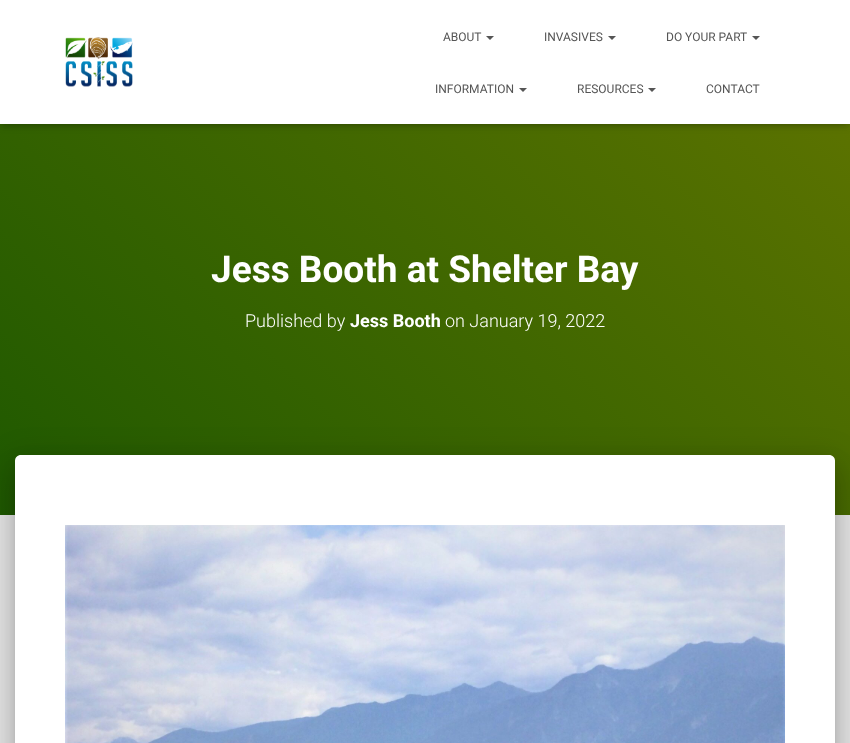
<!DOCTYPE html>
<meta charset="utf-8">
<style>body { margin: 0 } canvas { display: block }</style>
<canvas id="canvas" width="850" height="743"></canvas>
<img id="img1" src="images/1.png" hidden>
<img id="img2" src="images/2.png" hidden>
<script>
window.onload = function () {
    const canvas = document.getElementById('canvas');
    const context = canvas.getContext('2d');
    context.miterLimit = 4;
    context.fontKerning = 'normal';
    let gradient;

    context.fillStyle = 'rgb(229, 229, 229)';
    context.fillRect(0, 0, 850, 743);
    gradient = context.createLinearGradient(84, 599, 766, -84);
    gradient.addColorStop(0, 'rgb(31, 89, 0)');
    gradient.addColorStop(1, 'rgb(97, 117, 0)');
    context.fillStyle = gradient;
    context.fillRect(0, 124, 850, 391);
    context.fillStyle = 'rgba(0, 0, 0, 0.1)';
    context.filter = 'blur(2.5px)';
    context.beginPath();
    context.rect(2, 6, 846, 120);
    context.fill();
    context.filter = 'none';
    context.fillStyle = 'rgba(0, 0, 0, 0.12)';
    context.filter = 'blur(5px)';
    context.beginPath();
    context.rect(0, 1, 850, 124);
    context.fill();
    context.filter = 'none';
    context.fillStyle = 'rgba(0, 0, 0, 0.42)';
    context.filter = 'blur(5px)';
    context.beginPath();
    context.rect(6, 7, 838, 112);
    context.fill();
    context.filter = 'none';
    context.fillStyle = 'rgb(255, 255, 255)';
    context.fillRect(0, 0, 850, 124);
    context.drawImage(document.getElementById('img1'), 65, 37, 68, 50);
    context.fillStyle = 'rgb(85, 85, 85)';
    context.beginPath();
    context.moveTo(486, 36);
    context.lineTo(494, 36);
    context.lineTo(490, 40);
    context.closePath();
    context.fill();
    context.beginPath();
    context.moveTo(608, 36);
    context.lineTo(616, 36);
    context.lineTo(612, 40);
    context.closePath();
    context.fill();
    context.beginPath();
    context.moveTo(752, 36);
    context.lineTo(760, 36);
    context.lineTo(756, 40);
    context.closePath();
    context.fill();
    context.beginPath();
    context.moveTo(519, 88);
    context.lineTo(527, 88);
    context.lineTo(523, 92);
    context.closePath();
    context.fill();
    context.beginPath();
    context.moveTo(648, 88);
    context.lineTo(656, 88);
    context.lineTo(652, 92);
    context.closePath();
    context.fill();
    context.fillStyle = 'rgba(0, 0, 0, 0.2)';
    context.filter = 'blur(5px)';
    context.beginPath();
    context.roundRect(20, 468, 810, 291, 1);
    context.fill();
    context.filter = 'none';
    context.fillStyle = 'rgba(0, 0, 0, 0.12)';
    context.filter = 'blur(15px)';
    context.beginPath();
    context.roundRect(10, 456, 830, 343, 11);
    context.fill();
    context.filter = 'none';
    context.fillStyle = 'rgba(0, 0, 0, 0.14)';
    context.filter = 'blur(12px)';
    context.beginPath();
    context.roundRect(13, 469, 824, 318, 8);
    context.fill();
    context.filter = 'none';
    context.fillStyle = 'rgb(255, 255, 255)';
    context.beginPath();
    context.moveTo(21, 455);
    context.lineTo(829, 455);
    context.bezierCurveTo(832.5, 455, 835, 457.5, 835, 461);
    context.lineTo(835, 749);
    context.lineTo(15, 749);
    context.lineTo(15, 461);
    context.bezierCurveTo(15, 457.5, 17.5, 455, 21, 455);
    context.closePath();
    context.fill();
    context.drawImage(document.getElementById('img2'), 65, 525, 720, 218);
    context.font = '12px Roboto';
    context.fillStyle = 'rgb(85, 85, 85)';
    context.fillText('ABOUT', 443, 41);
    context.fillText('INVASIVES', 544, 41);
    context.fillText('DO YOUR PART', 666, 41);
    context.fillText('INFORMATION', 435, 93);
    context.fillText('RESOURCES', 577, 93);
    context.fillText('CONTACT', 706, 93);
    context.font = 'bold 37px Roboto';
    context.fillStyle = 'rgb(255, 255, 255)';
    context.fillText('Jess Booth at Shelter Bay', 211, 282);
    context.font = '300 18px Roboto';
    context.fillText('Published by', 245, 327);
    context.font = 'bold 18px Roboto';
    context.fillText('Jess Booth', 350, 327);
    context.font = '300 18px Roboto';
    context.fillText('on January 19, 2022', 445, 327);
};
</script>
